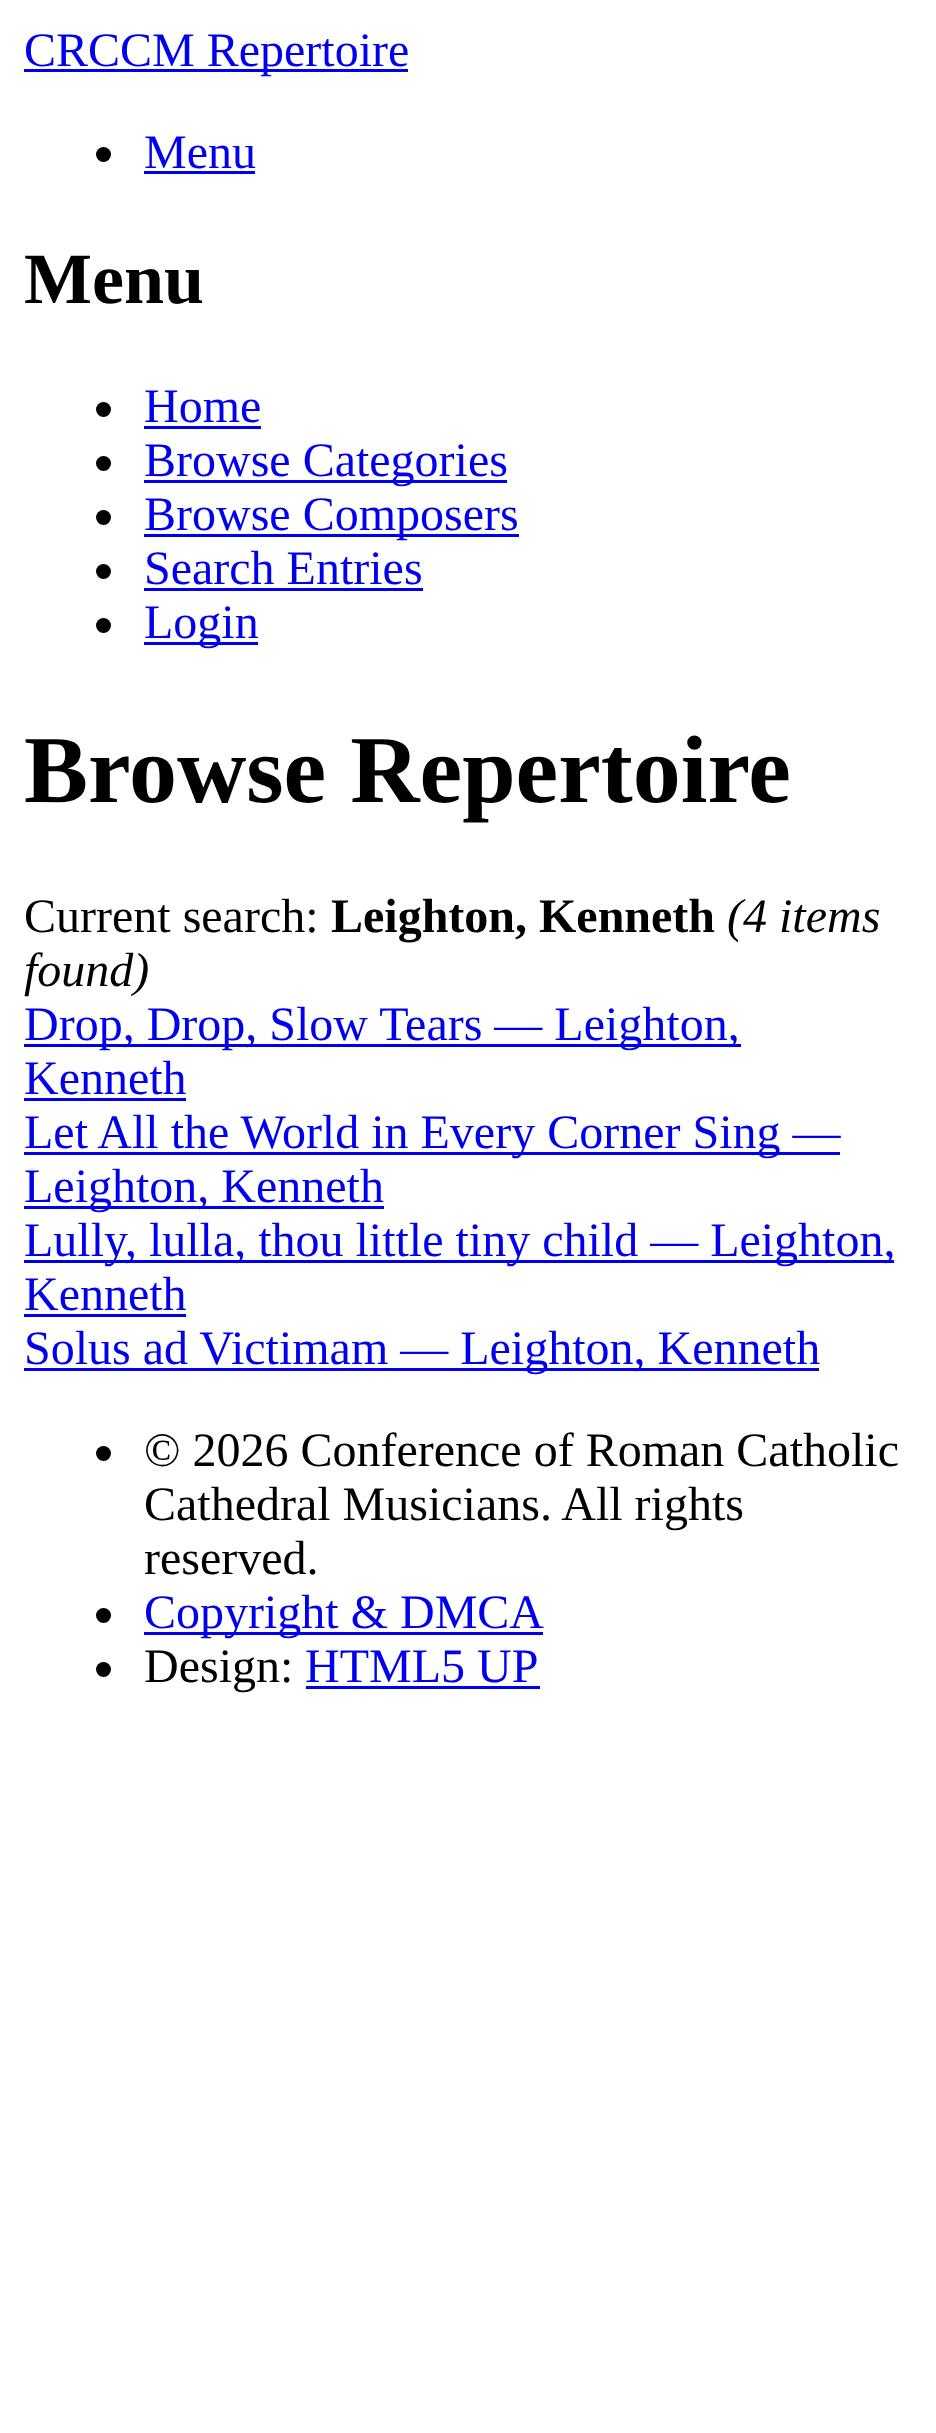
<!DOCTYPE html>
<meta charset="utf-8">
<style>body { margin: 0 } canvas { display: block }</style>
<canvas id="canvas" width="936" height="2433"></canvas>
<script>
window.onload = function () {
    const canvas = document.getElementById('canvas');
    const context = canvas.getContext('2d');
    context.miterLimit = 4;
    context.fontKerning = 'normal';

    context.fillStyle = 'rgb(255, 255, 255)';
    context.fillRect(0, 0, 936, 2433);
    context.fillStyle = 'rgb(0, 0, 238)';
    context.fillRect(24, 69, 384, 3);
    context.fillStyle = 'rgb(0, 0, 0)';
    context.beginPath();
    context.arc(103.5, 154.5, 7.5, 0, 2 * Math.PI);
    context.fill();
    context.fillStyle = 'rgb(0, 0, 238)';
    context.fillRect(144, 171, 111, 3);
    context.fillStyle = 'rgb(0, 0, 0)';
    context.beginPath();
    context.arc(103.5, 409.5, 7.5, 0, 2 * Math.PI);
    context.fill();
    context.fillStyle = 'rgb(0, 0, 238)';
    context.fillRect(144, 426, 117, 3);
    context.fillStyle = 'rgb(0, 0, 0)';
    context.beginPath();
    context.arc(103.5, 463.5, 7.5, 0, 2 * Math.PI);
    context.fill();
    context.fillStyle = 'rgb(0, 0, 238)';
    context.fillRect(144, 480, 363, 3);
    context.fillStyle = 'rgb(0, 0, 0)';
    context.beginPath();
    context.arc(103.5, 517.5, 7.5, 0, 2 * Math.PI);
    context.fill();
    context.fillStyle = 'rgb(0, 0, 238)';
    context.fillRect(144, 534, 375, 3);
    context.fillStyle = 'rgb(0, 0, 0)';
    context.beginPath();
    context.arc(103.5, 571.5, 7.5, 0, 2 * Math.PI);
    context.fill();
    context.fillStyle = 'rgb(0, 0, 238)';
    context.fillRect(144, 588, 279, 3);
    context.fillStyle = 'rgb(0, 0, 0)';
    context.beginPath();
    context.arc(103.5, 625.5, 7.5, 0, 2 * Math.PI);
    context.fill();
    context.fillStyle = 'rgb(0, 0, 238)';
    context.fillRect(144, 642, 114, 3);
    context.fillRect(24, 1044, 717, 3);
    context.fillRect(24, 1098, 162, 3);
    context.fillRect(24, 1152, 816, 3);
    context.fillRect(24, 1206, 360, 3);
    context.fillRect(24, 1260, 870, 3);
    context.fillRect(24, 1314, 162, 3);
    context.fillRect(24, 1368, 795, 3);
    context.fillStyle = 'rgb(0, 0, 0)';
    context.beginPath();
    context.arc(103.5, 1453.5, 7.5, 0, 2 * Math.PI);
    context.fill();
    context.beginPath();
    context.arc(103.5, 1615.5, 7.5, 0, 2 * Math.PI);
    context.fill();
    context.fillStyle = 'rgb(0, 0, 238)';
    context.fillRect(144, 1632, 399, 3);
    context.fillStyle = 'rgb(0, 0, 0)';
    context.beginPath();
    context.arc(103.5, 1669.5, 7.5, 0, 2 * Math.PI);
    context.fill();
    context.fillStyle = 'rgb(0, 0, 238)';
    context.fillRect(306, 1686, 234, 3);
    context.font = '48px Liberation Serif';
    context.fillText('CRCCM Repertoire', 24, 66);
    context.fillText('Menu', 144, 168);
    context.font = 'bold 72px Liberation Serif';
    context.fillStyle = 'rgb(0, 0, 0)';
    context.fillText('Menu', 24, 303);
    context.font = '48px Liberation Serif';
    context.fillStyle = 'rgb(0, 0, 238)';
    context.fillText('Home', 144, 422);
    context.fillText('Browse Categories', 144, 476);
    context.fillText('Browse Composers', 144, 530);
    context.fillText('Search Entries', 144, 584);
    context.fillText('Login', 144, 638);
    context.font = 'bold 96px Liberation Serif';
    context.fillStyle = 'rgb(0, 0, 0)';
    context.fillText('Browse Repertoire', 24, 802);
    context.font = '48px Liberation Serif';
    context.fillText('Current search:', 24, 932);
    context.font = 'bold 48px Liberation Serif';
    context.fillText('Leighton, Kenneth', 331, 932);
    context.font = 'italic 48px Liberation Serif';
    context.fillText('(4 items', 727, 932);
    context.fillText('found)', 24, 986);
    context.font = '48px Liberation Serif';
    context.fillStyle = 'rgb(0, 0, 238)';
    context.fillText('Drop, Drop, Slow Tears — Leighton,', 24, 1040);
    context.fillText('Kenneth', 24, 1094);
    context.fillText('Let All the World in Every Corner Sing —', 24, 1148);
    context.fillText('Leighton, Kenneth', 24, 1202);
    context.fillText('Lully, lulla, thou little tiny child — Leighton,', 24, 1256);
    context.fillText('Kenneth', 24, 1310);
    context.fillText('Solus ad Victimam — Leighton, Kenneth', 24, 1364);
    context.fillStyle = 'rgb(0, 0, 0)';
    context.fillText('© 2026 Conference of Roman Catholic', 144, 1466);
    context.fillText('Cathedral Musicians. All rights', 144, 1520);
    context.fillText('reserved.', 144, 1574);
    context.fillStyle = 'rgb(0, 0, 238)';
    context.fillText('Copyright & DMCA', 144, 1628);
    context.fillStyle = 'rgb(0, 0, 0)';
    context.fillText('Design:', 144, 1682);
    context.fillStyle = 'rgb(0, 0, 238)';
    context.fillText('HTML5 UP', 305, 1682);
};
</script>
